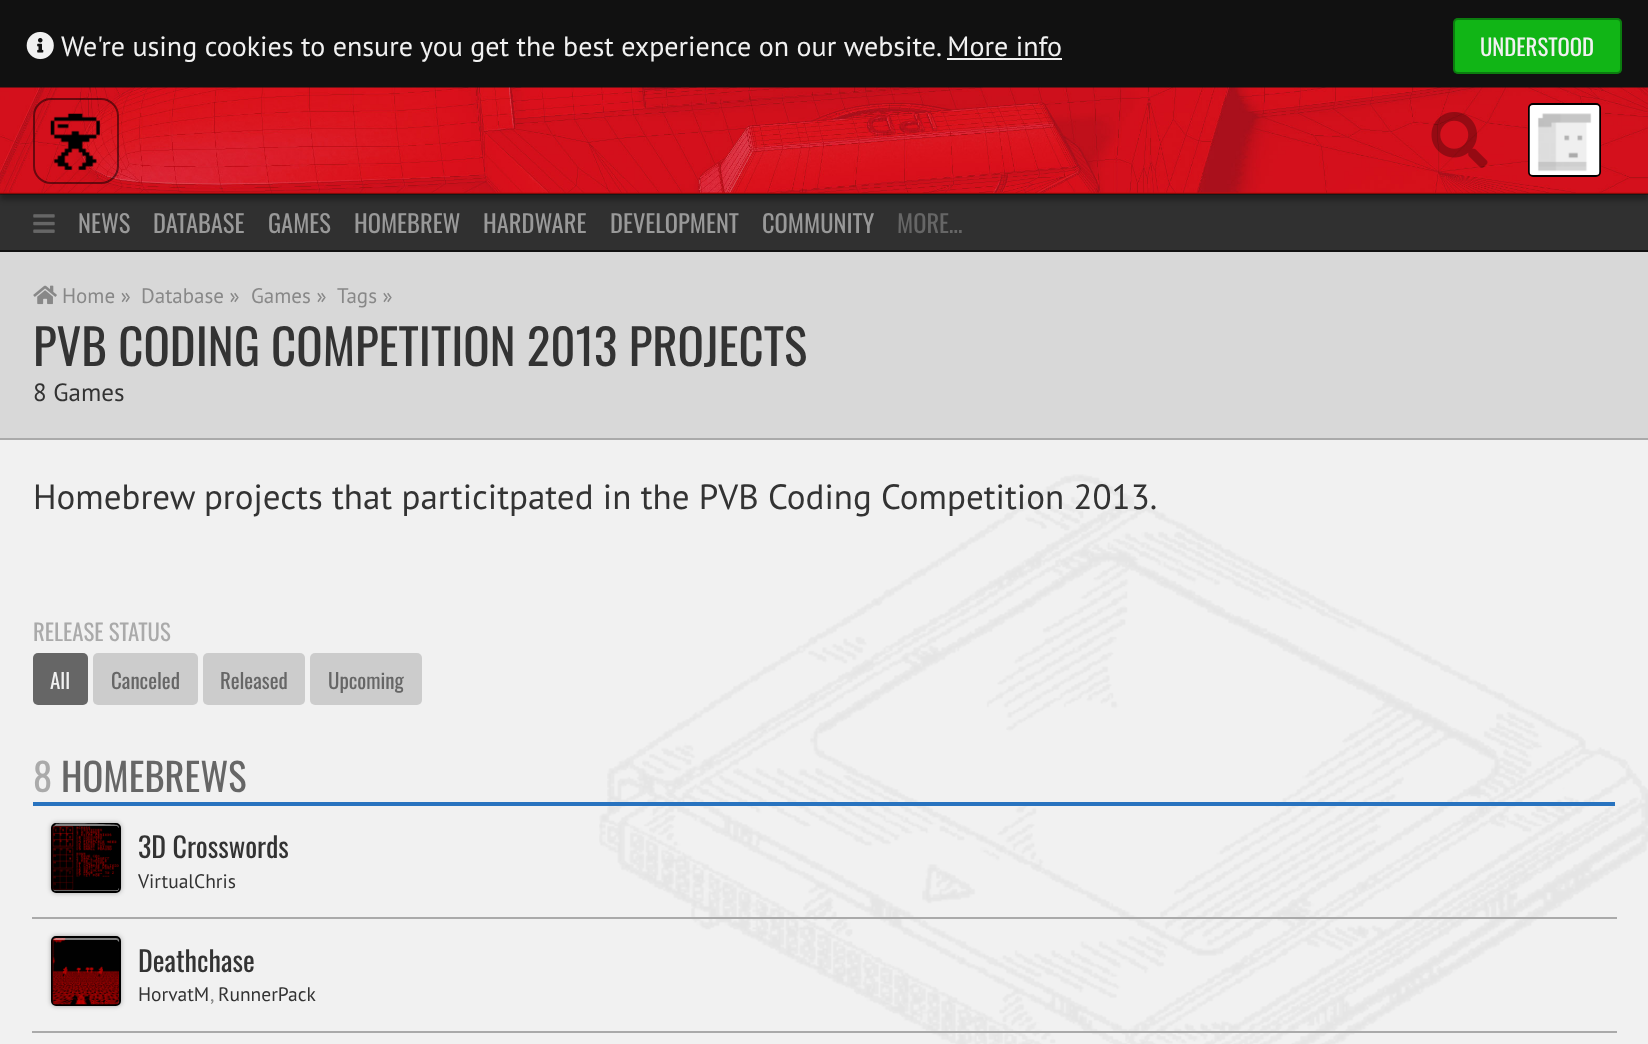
<!DOCTYPE html>
<meta charset="utf-8">
<style>body { margin: 0 } canvas { display: block }</style>
<canvas id="canvas" width="1648" height="1044"></canvas>
<img id="img1" src="images/1.png" hidden>
<img id="img2" src="images/2.png" hidden>
<img id="img3" src="images/3.png" hidden>
<img id="img4" src="images/4.png" hidden>
<img id="img5" src="images/5.png" hidden>
<img id="img6" src="images/6.png" hidden>
<img id="img7" src="images/7.png" hidden>
<img id="img8" src="images/8.png" hidden>
<img id="img9" src="images/9.png" hidden>
<img id="img10" src="images/10.png" hidden>
<script>
window.onload = function () {
    const canvas = document.getElementById('canvas');
    const context = canvas.getContext('2d');
    context.miterLimit = 4;
    context.fontKerning = 'normal';

    context.fillStyle = 'rgb(241, 241, 241)';
    context.fillRect(0, 0, 1648, 1044);
    context.fillStyle = 'rgb(17, 17, 17)';
    context.fillRect(0, 0, 1648, 88);
    context.drawImage(document.getElementById('img1'), 26, 31, 28, 29);
    context.fillStyle = 'rgb(241, 241, 241)';
    context.fillRect(947, 58, 115, 2);
    context.fillStyle = 'rgb(17, 181, 22)';
    context.beginPath();
    context.roundRect(1453, 18, 169, 56, 5);
    context.fill();
    context.beginPath();
    context.roundRect(1454, 19, 167, 54, 4);
    context.strokeStyle = 'rgba(0, 0, 0, 0.3)';
    context.lineWidth = 2;
    context.stroke();
    context.fillStyle = 'rgb(48, 48, 48)';
    context.fillRect(0, 194, 1648, 56);
    context.fillStyle = 'rgba(0, 0, 0, 0.3)';
    context.filter = 'blur(2.5px)';
    context.beginPath();
    context.rect(0, 93, 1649, 107);
    context.fill();
    context.filter = 'none';
    context.fillStyle = 'rgb(191, 15, 14)';
    context.fillRect(0, 192, 1648, 2);
    context.drawImage(document.getElementById('img2'), 0, 87, 1648, 106);
    context.fillStyle = 'rgba(0, 0, 0, 0.3)';
    context.fillRect(0, 193, 1648, 2);
    context.beginPath();
    context.roundRect(34, 99, 84, 84, 17);
    context.strokeStyle = 'rgba(0, 0, 0, 0.5)';
    context.stroke();
    context.drawImage(document.getElementById('img3'), 50, 113, 50, 57);
    context.drawImage(document.getElementById('img4'), 1431, 112, 57, 56);
    context.beginPath();
    context.roundRect(1529, 104, 71, 72, 4);
    context.strokeStyle = 'rgb(0, 0, 0)';
    context.stroke();
    context.drawImage(document.getElementById('img5'), 1529, 105, 71, 70);
    context.fillStyle = 'rgb(17, 17, 17)';
    context.fillRect(0, 250, 1648, 2);
    context.drawImage(document.getElementById('img6'), 33, 214, 22, 19);
    context.fillStyle = 'rgb(216, 216, 216)';
    context.fillRect(0, 252, 1648, 186);
    context.fillStyle = 'rgb(170, 170, 170)';
    context.fillRect(0, 438, 1648, 2);
    context.drawImage(document.getElementById('img7'), 33, 285, 24, 20);
    context.drawImage(document.getElementById('img8'), 599, 474, 1049, 570);
    context.fillStyle = 'rgb(102, 102, 102)';
    context.beginPath();
    context.roundRect(33, 653, 55, 52, 5);
    context.fill();
    context.fillStyle = 'rgb(204, 204, 204)';
    context.beginPath();
    context.roundRect(93, 653, 105, 52, 5);
    context.fill();
    context.beginPath();
    context.roundRect(203, 653, 102, 52, 5);
    context.fill();
    context.beginPath();
    context.roundRect(310, 653, 112, 52, 5);
    context.fill();
    context.fillStyle = 'rgb(40, 115, 191)';
    context.fillRect(33, 802, 1582, 4);
    context.fillStyle = 'rgba(0, 0, 0, 0.3)';
    context.filter = 'blur(2.5px)';
    context.beginPath();
    context.roundRect(51, 823, 70, 70, 5);
    context.fill();
    context.filter = 'none';
    context.fillStyle = 'rgb(241, 241, 241)';
    context.beginPath();
    context.roundRect(52, 824, 68, 68, 4);
    context.fill();
    context.stroke();
    context.drawImage(document.getElementById('img9'), 52, 825, 67, 66);
    context.fillStyle = 'rgba(255, 255, 255, 0.5)';
    context.beginPath();
    context.moveTo(55, 826);
    context.lineTo(53, 827);
    context.bezierCurveTo(54, 826, 55, 825, 56, 824);
    context.bezierCurveTo(58, 823, 116, 824, 117, 825);
    context.bezierCurveTo(118, 825, 119, 827, 119, 828);
    context.lineTo(117, 826);
    context.closePath();
    context.fill();
    context.fillStyle = 'rgb(170, 170, 170)';
    context.fillRect(32, 917, 1585, 2);
    context.fillStyle = 'rgba(0, 0, 0, 0.3)';
    context.filter = 'blur(2.5px)';
    context.beginPath();
    context.roundRect(51, 936, 70, 70, 5);
    context.fill();
    context.filter = 'none';
    context.beginPath();
    context.roundRect(52, 937, 68, 68, 4);
    context.stroke();
    context.drawImage(document.getElementById('img10'), 52, 938, 67, 67);
    context.fillStyle = 'rgba(255, 255, 255, 0.5)';
    context.beginPath();
    context.moveTo(55, 940);
    context.lineTo(53, 940);
    context.bezierCurveTo(54, 939, 55, 939, 56, 938);
    context.lineTo(115, 938);
    context.bezierCurveTo(117, 938, 120, 940, 119, 942);
    context.lineTo(117, 940);
    context.closePath();
    context.fill();
    context.fillStyle = 'rgb(170, 170, 170)';
    context.fillRect(32, 1031, 1585, 2);
    context.font = '28px PT Sans';
    context.fillStyle = 'rgb(241, 241, 241)';
    context.fillText('We\'re using cookies to ensure you get the best experience on our website. More info', 61, 56);
    context.font = '22.75px Oswald';
    context.fillText('UNDERSTOOD', 1480, 56);
    context.font = '24.5px Oswald';
    context.fillStyle = 'rgb(153, 153, 153)';
    context.fillText('NEWS', 78, 233);
    context.fillText('DATABASE', 153, 233);
    context.fillText('GAMES', 268, 233);
    context.fillText('HOMEBREW', 354, 233);
    context.fillText('HARDWARE', 483, 233);
    context.fillText('DEVELOPMENT', 610, 233);
    context.fillText('COMMUNITY', 762, 233);
    context.fillStyle = 'rgb(102, 102, 102)';
    context.fillText('MORE…', 897, 233);
    context.font = '21px PT Sans';
    context.fillStyle = 'rgb(136, 136, 136)';
    context.fillText('Home »', 62, 303);
    context.fillText('Database »', 141, 303);
    context.fillText('Games »', 251, 303);
    context.fillText('Tags »', 337, 303);
    context.font = '49px Oswald';
    context.fillStyle = 'rgb(51, 51, 51)';
    context.fillText('PVB CODING COMPETITION 2013 PROJECTS', 33, 366);
    context.font = '25px PT Sans';
    context.fillText('8 Games', 33, 401);
    context.font = '35px PT Sans';
    context.fillText('Homebrew projects that particitpated in the PVB Coding Competition 2013.', 33, 509);
    context.font = '22.75px Oswald';
    context.fillStyle = 'rgb(170, 170, 170)';
    context.fillText('RELEASE STATUS', 33, 641);
    context.font = '21px Oswald';
    context.fillStyle = 'rgb(241, 241, 241)';
    context.fillText('All', 50, 689);
    context.fillStyle = 'rgb(102, 102, 102)';
    context.fillText('Canceled', 111, 689);
    context.fillText('Released', 220, 689);
    context.fillText('Upcoming', 328, 689);
    context.font = '38.5px Oswald';
    context.fillStyle = 'rgb(170, 170, 170)';
    context.fillText('8', 33, 792);
    context.fillStyle = 'rgb(102, 102, 102)';
    context.fillText('HOMEBREWS', 61, 792);
    context.font = '28px Oswald';
    context.fillStyle = 'rgb(51, 51, 51)';
    context.fillText('3D Crosswords', 138, 858);
    context.font = '19.5px PT Sans';
    context.fillText('VirtualChris', 138, 888);
    context.font = '28px Oswald';
    context.fillText('Deathchase', 138, 972);
    context.font = '19.5px PT Sans';
    context.fillText('HorvatM', 138, 1001);
    context.fillStyle = 'rgb(136, 136, 136)';
    context.fillText(',', 210, 1001);
    context.fillStyle = 'rgb(51, 51, 51)';
    context.fillText('RunnerPack', 218, 1001);
};
</script>
